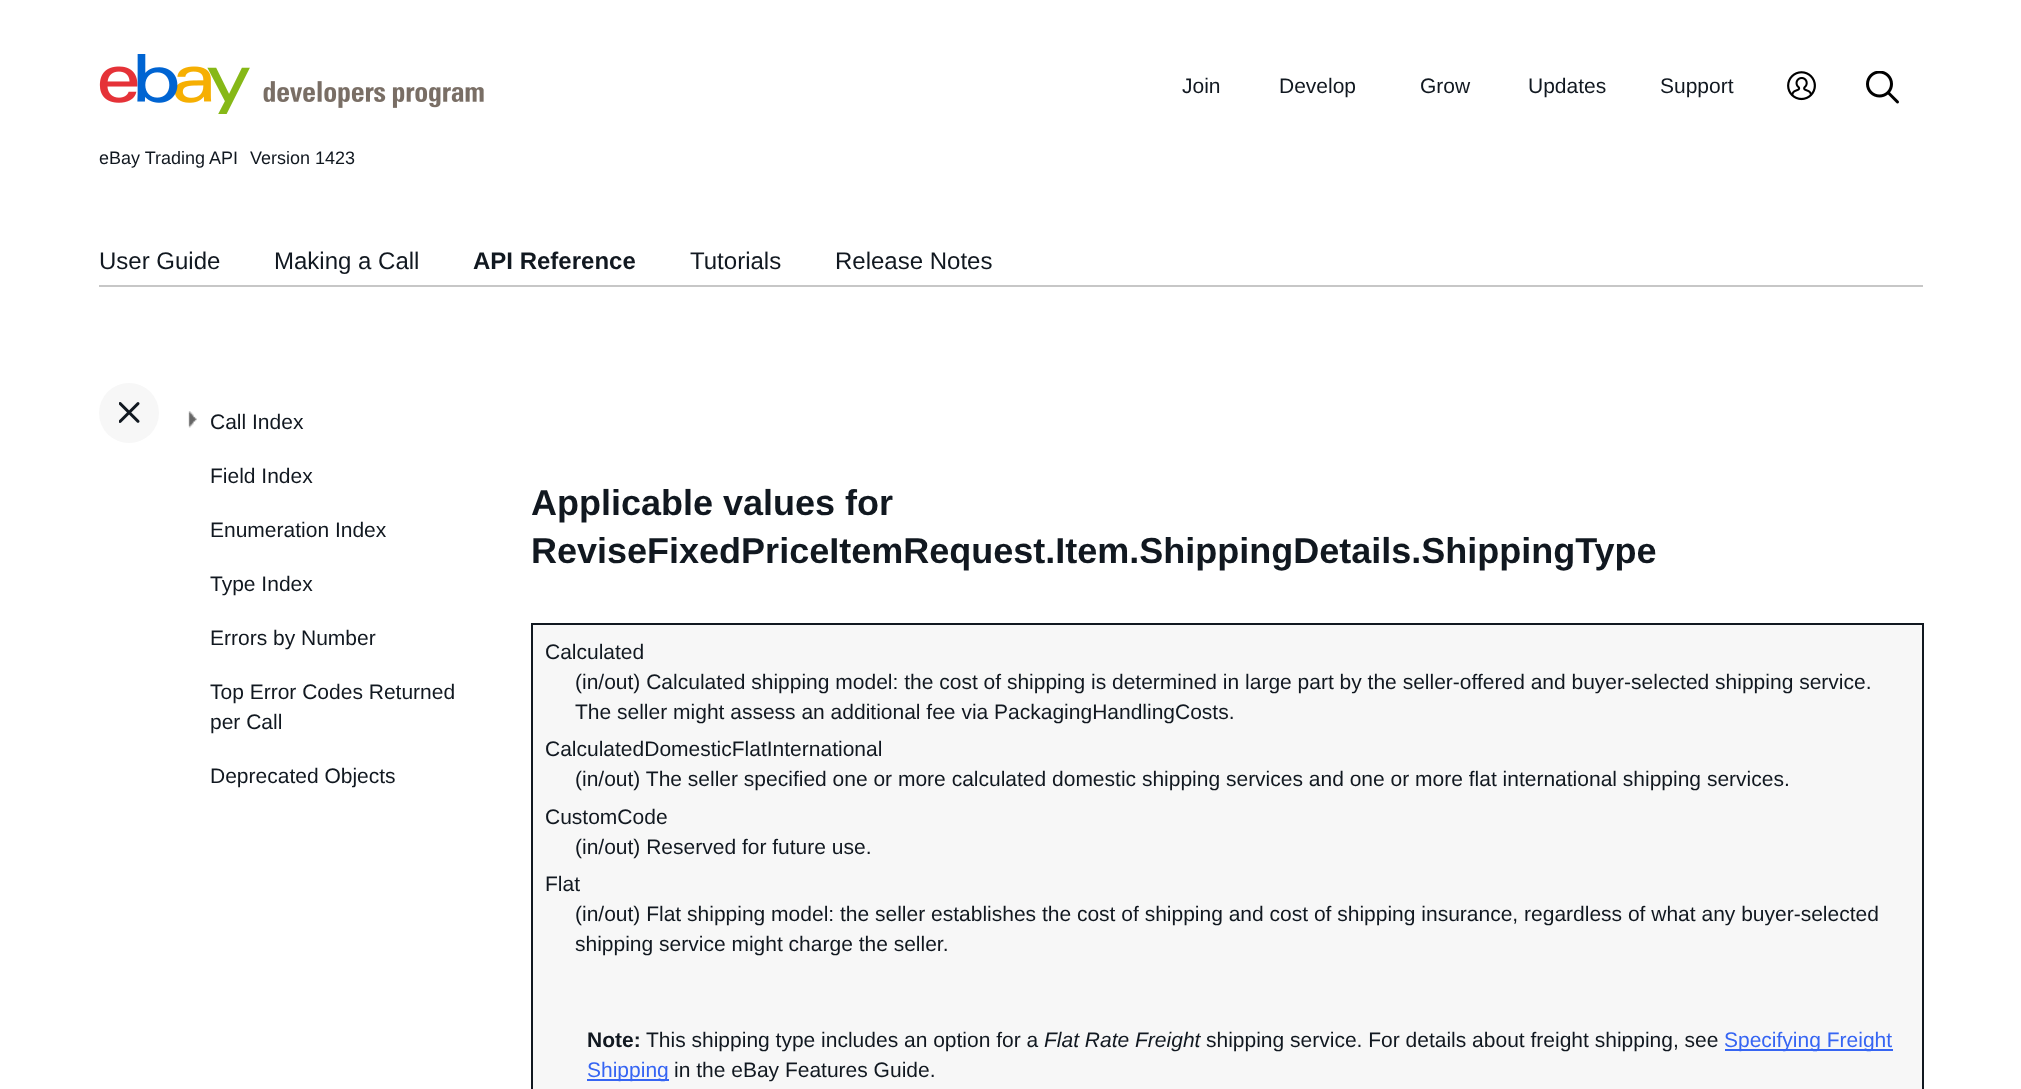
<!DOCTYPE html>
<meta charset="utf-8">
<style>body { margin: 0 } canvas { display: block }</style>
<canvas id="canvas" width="2021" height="1089"></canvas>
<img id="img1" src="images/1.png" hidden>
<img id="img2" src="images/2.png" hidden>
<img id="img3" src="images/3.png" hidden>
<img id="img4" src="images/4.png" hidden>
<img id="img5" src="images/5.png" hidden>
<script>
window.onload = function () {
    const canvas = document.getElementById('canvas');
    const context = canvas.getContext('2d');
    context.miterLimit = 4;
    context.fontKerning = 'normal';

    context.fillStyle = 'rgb(255, 255, 255)';
    context.fillRect(0, 0, 2021, 1089);
    context.drawImage(document.getElementById('img1'), 99, 54, 385, 60);
    context.drawImage(document.getElementById('img2'), 1787, 71, 29, 30);
    context.drawImage(document.getElementById('img3'), 1866, 71, 33, 33);
    context.fillStyle = 'rgb(199, 199, 199)';
    context.fillRect(99, 285, 1824, 2);
    context.fillStyle = 'rgb(247, 247, 247)';
    context.beginPath();
    context.arc(129, 413, 30, 0, 2 * Math.PI);
    context.fill();
    context.drawImage(document.getElementById('img4'), 119, 402, 21, 21);
    context.drawImage(document.getElementById('img5'), 188, 411, 9, 17);
    context.fillStyle = 'rgb(17, 24, 32)';
    context.fillRect(531, 623, 1392, 2);
    context.fillRect(1922, 623, 2, 466);
    context.fillRect(531, 623, 2, 466);
    context.fillStyle = 'rgb(247, 247, 247)';
    context.fillRect(533, 625, 1389, 464);
    context.fillStyle = 'rgb(54, 101, 243)';
    context.fillRect(1725, 1049, 168, 2);
    context.fillRect(587, 1079, 82, 2);
    context.font = '21px Liberation Sans';
    context.fillStyle = 'rgb(17, 24, 32)';
    context.fillText('Join', 1182, 93);
    context.fillText('Develop', 1279, 93);
    context.fillText('Grow', 1420, 93);
    context.fillText('Updates', 1528, 93);
    context.fillText('Support', 1660, 93);
    context.font = '18px Liberation Sans';
    context.fillText('eBay Trading API', 99, 164);
    context.fillText('Version 1423', 250, 164);
    context.font = '24px Liberation Sans';
    context.fillText('User Guide', 99, 269);
    context.fillText('Making a Call', 274, 269);
    context.font = 'bold 24px Liberation Sans';
    context.fillText('API Reference', 473, 269);
    context.font = '24px Liberation Sans';
    context.fillText('Tutorials', 690, 269);
    context.fillText('Release Notes', 835, 269);
    context.font = '21px Liberation Sans';
    context.fillText('Call Index', 210, 429);
    context.fillText('Field Index', 210, 483);
    context.fillText('Enumeration Index', 210, 537);
    context.fillText('Type Index', 210, 591);
    context.fillText('Errors by Number', 210, 645);
    context.fillText('Top Error Codes Returned', 210, 699);
    context.fillText('per Call', 210, 729);
    context.fillText('Deprecated Objects', 210, 783);
    context.font = 'bold 36px Liberation Sans';
    context.fillText('Applicable values for', 531, 515);
    context.fillText('ReviseFixedPriceItemRequest.Item.ShippingDetails.ShippingType', 531, 563);
    context.font = '21px Liberation Sans';
    context.fillText('Calculated', 545, 659);
    context.fillText('(in/out) Calculated shipping model: the cost of shipping is determined in large part by the seller-offered and buyer-selected shipping service.', 575, 689);
    context.fillText('The seller might assess an additional fee via PackagingHandlingCosts.', 575, 719);
    context.fillText('CalculatedDomesticFlatInternational', 545, 756);
    context.fillText('(in/out) The seller specified one or more calculated domestic shipping services and one or more flat international shipping services.', 575, 786);
    context.fillText('CustomCode', 545, 824);
    context.fillText('(in/out) Reserved for future use.', 575, 854);
    context.fillText('Flat', 545, 891);
    context.fillText('(in/out) Flat shipping model: the seller establishes the cost of shipping and cost of shipping insurance, regardless of what any buyer-selected', 575, 921);
    context.fillText('shipping service might charge the seller.', 575, 951);
    context.font = 'bold 21px Liberation Sans';
    context.fillText('Note:', 587, 1047);
    context.font = '21px Liberation Sans';
    context.fillText('This shipping type includes an option for a', 646, 1047);
    context.font = 'italic 21px Liberation Sans';
    context.fillText('Flat Rate Freight', 1044, 1047);
    context.font = '21px Liberation Sans';
    context.fillText('shipping service. For details about freight shipping, see', 1206, 1047);
    context.fillStyle = 'rgb(54, 101, 243)';
    context.fillText('Specifying Freight', 1724, 1047);
    context.fillText('Shipping', 587, 1077);
    context.fillStyle = 'rgb(17, 24, 32)';
    context.fillText('in the eBay Features Guide.', 674, 1077);
};
</script>
